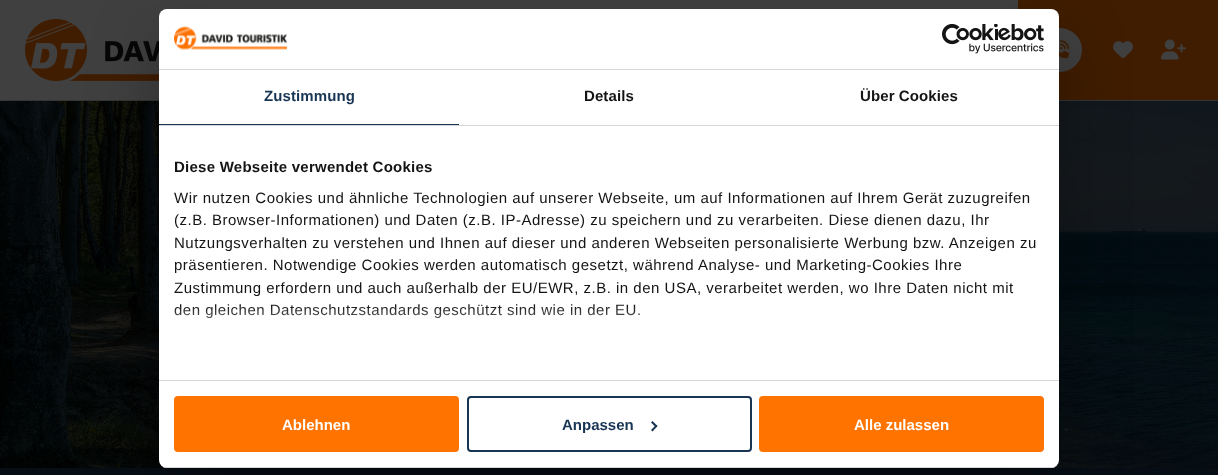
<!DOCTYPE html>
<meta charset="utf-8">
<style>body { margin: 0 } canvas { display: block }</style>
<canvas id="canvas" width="1218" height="475"></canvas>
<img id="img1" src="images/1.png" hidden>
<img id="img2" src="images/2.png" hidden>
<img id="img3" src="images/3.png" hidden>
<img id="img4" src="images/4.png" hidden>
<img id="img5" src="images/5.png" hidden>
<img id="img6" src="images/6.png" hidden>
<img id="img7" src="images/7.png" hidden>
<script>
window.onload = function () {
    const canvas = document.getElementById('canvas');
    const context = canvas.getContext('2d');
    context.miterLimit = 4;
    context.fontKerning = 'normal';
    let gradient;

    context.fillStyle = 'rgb(64, 64, 64)';
    context.fillRect(0, 0, 1218, 475);
    context.fillStyle = 'rgb(53, 53, 53)';
    context.fillRect(0, 100, 1218, 1);
    context.drawImage(document.getElementById('img1'), 25, 19, 134, 62);
    context.fillStyle = 'rgb(64, 29, 0)';
    context.fillRect(1018, 0, 200, 100);
    context.fillStyle = 'rgb(64, 64, 64)';
    context.beginPath();
    context.arc(1060, 50, 22, 0, 2 * Math.PI);
    context.fill();
    context.drawImage(document.getElementById('img2'), 1059, 40, 10, 19);
    context.drawImage(document.getElementById('img3'), 1113, 41, 20, 18);
    context.drawImage(document.getElementById('img4'), 1161, 39, 25, 21);
    context.drawImage(document.getElementById('img5'), 0, 101, 1218, 367);
    context.fillStyle = 'rgb(6, 13, 21)';
    context.fillRect(0, 468, 1218, 7);
    context.fillStyle = 'rgba(0, 0, 0, 0.3)';
    context.filter = 'blur(34px)';
    context.beginPath();
    context.roundRect(159, 41, 900, 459, 8);
    context.fill();
    context.filter = 'none';
    context.fillStyle = 'rgb(255, 255, 255)';
    context.beginPath();
    context.roundRect(159, 9, 900, 459, 8);
    context.fill();
    context.fillStyle = 'rgb(214, 214, 214)';
    context.fillRect(159, 69, 900, 1);
    context.drawImage(document.getElementById('img6'), 174, 26, 113, 24);
    context.drawImage(document.getElementById('img7'), 942, 24, 102, 30);
    context.fillRect(159, 125, 900, 1);
    context.fillStyle = 'rgb(24, 53, 84)';
    context.fillRect(159, 124, 300, 1);
    context.fillStyle = 'rgb(214, 214, 214)';
    context.fillRect(159, 380, 900, 1);
    context.save();
    context.beginPath();
    context.roundRect(159, 9, 900, 459, 8);
    context.clip();
    context.fillRect(159, 467, 900, 1);
    context.restore();
    context.fillStyle = 'rgb(255, 115, 0)';
    context.beginPath();
    context.roundRect(175, 397, 283, 54, 3);
    context.fill();
    context.strokeStyle = 'rgb(255, 115, 0)';
    context.lineWidth = 2;
    context.stroke();
    context.beginPath();
    context.roundRect(468, 397, 283, 54, 3);
    context.strokeStyle = 'rgb(24, 53, 84)';
    context.stroke();
    context.fillStyle = 'rgb(24, 53, 84)';
    context.beginPath();
    context.moveTo(652.5, 421);
    context.lineTo(657.5, 426);
    context.lineTo(656, 427.5);
    context.lineTo(651, 422.5);
    context.closePath();
    context.fill();
    context.beginPath();
    context.moveTo(656, 425);
    context.lineTo(657.5, 426);
    context.lineTo(652.5, 431.5);
    context.lineTo(651, 430);
    context.closePath();
    context.fill();
    context.fillStyle = 'rgb(255, 115, 0)';
    context.beginPath();
    context.roundRect(760, 397, 283, 54, 3);
    context.fill();
    context.strokeStyle = 'rgb(255, 115, 0)';
    context.stroke();
    context.letterSpacing = '0.1px';
    context.font = 'bold 15px Liberation Sans';
    context.fillStyle = 'rgb(24, 53, 84)';
    context.fillText('Zustimmung', 264, 101);
    context.fillStyle = 'rgb(20, 20, 20)';
    context.fillText('Details', 584, 101);
    context.fillText('Über Cookies', 860, 101);
    context.letterSpacing = '0.25px';
    context.fillText('Diese Webseite verwendet Cookies', 174, 172);
    context.letterSpacing = '0.5px';
    context.font = '15px Liberation Sans';
    context.fillText('Wir nutzen Cookies und ähnliche Technologien auf unserer Webseite, um auf Informationen auf Ihrem Gerät zuzugreifen', 174, 203);
    context.fillText('(z.B. Browser-Informationen) und Daten (z.B. IP-Adresse) zu speichern und zu verarbeiten. Diese dienen dazu, Ihr', 174, 225);
    context.fillText('Nutzungsverhalten zu verstehen und Ihnen auf dieser und anderen Webseiten personalisierte Werbung bzw. Anzeigen zu', 174, 248);
    context.fillText('präsentieren. Notwendige Cookies werden automatisch gesetzt, während Analyse- und Marketing-Cookies Ihre', 174, 270);
    context.fillText('Zustimmung erfordern und auch außerhalb der EU/EWR, z.B. in den USA, verarbeitet werden, wo Ihre Daten nicht mit', 174, 293);
    context.fillText('den gleichen Datenschutzstandards geschützt sind wie in der EU.', 174, 315);
    gradient = context.createLinearGradient(603, 380, 603, 305);
    gradient.addColorStop(0, 'rgb(255, 255, 255)');
    gradient.addColorStop(0.5, 'rgba(255, 255, 255, 0.8)');
    gradient.addColorStop(1, 'rgba(255, 255, 255, 0)');
    context.fillStyle = gradient;
    context.fillRect(174, 306, 466, 13);
    context.letterSpacing = '0px';
    context.font = 'bold 15px Liberation Sans';
    context.fillStyle = 'rgb(255, 255, 255)';
    context.fillText('Ablehnen', 282, 430);
    context.fillStyle = 'rgb(24, 53, 84)';
    context.fillText('Anpassen', 562, 430);
    context.fillStyle = 'rgb(255, 255, 255)';
    context.fillText('Alle zulassen', 854, 430);
};
</script>
